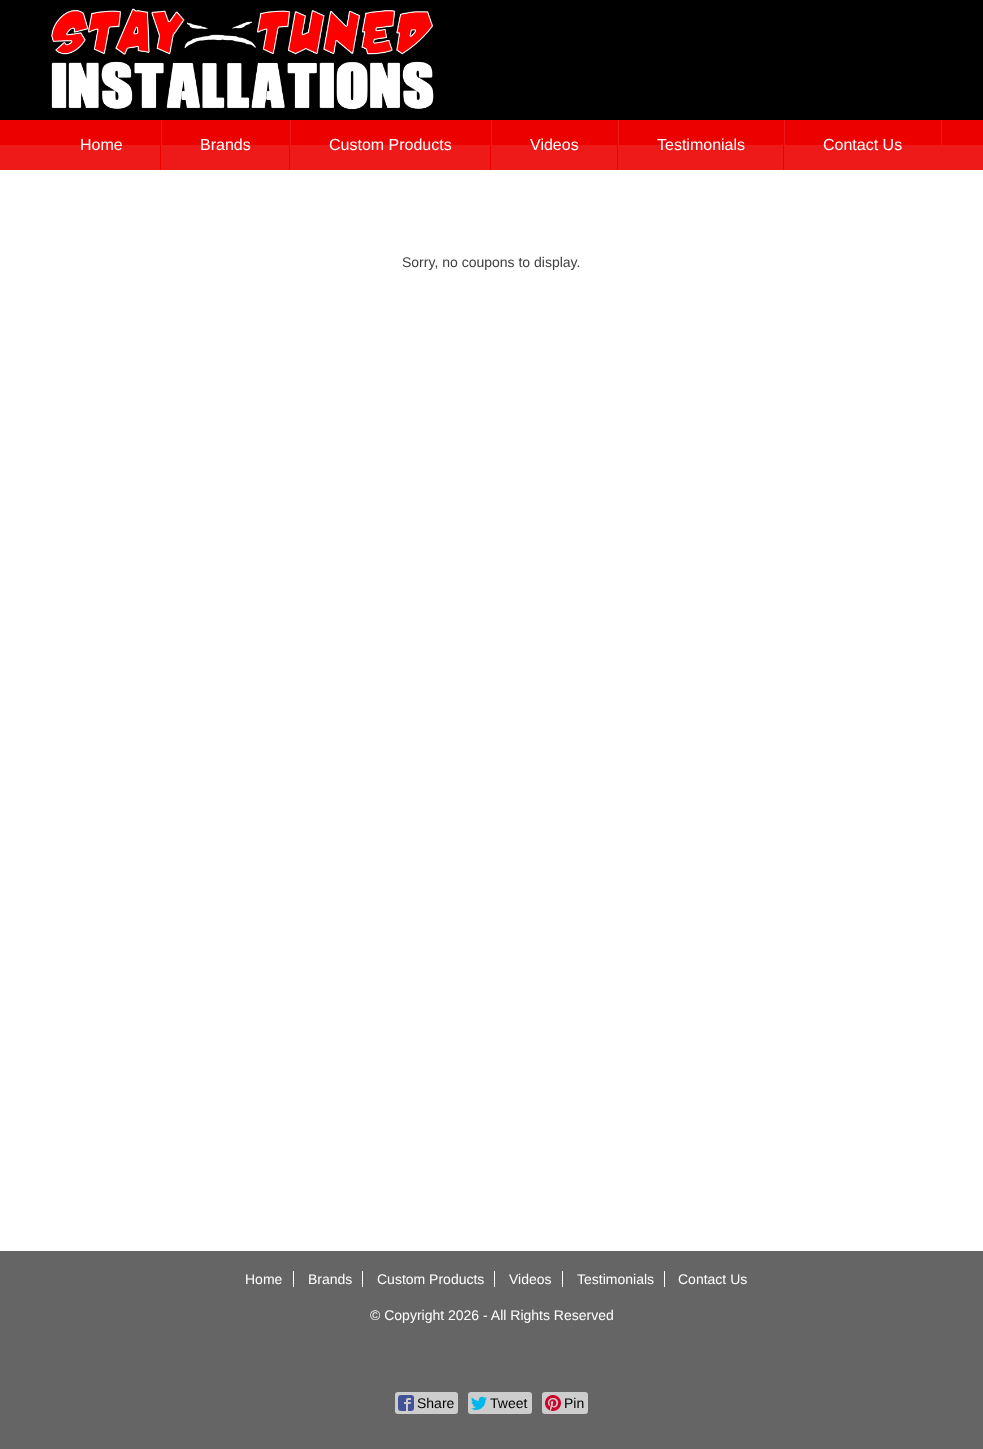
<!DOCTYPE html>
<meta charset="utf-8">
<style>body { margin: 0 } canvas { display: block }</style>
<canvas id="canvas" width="983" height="1449"></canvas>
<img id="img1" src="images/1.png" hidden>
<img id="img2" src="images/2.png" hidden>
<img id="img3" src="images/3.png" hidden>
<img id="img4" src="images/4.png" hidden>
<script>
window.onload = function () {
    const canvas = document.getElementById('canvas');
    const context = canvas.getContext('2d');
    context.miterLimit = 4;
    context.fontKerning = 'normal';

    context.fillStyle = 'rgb(255, 255, 255)';
    context.fillRect(0, 0, 983, 1449);
    context.fillStyle = 'rgb(0, 0, 0)';
    context.fillRect(0, 0, 983, 120);
    context.drawImage(document.getElementById('img1'), 51, 8, 383, 102);
    context.fillStyle = 'rgb(236, 0, 0)';
    context.fillRect(0, 120, 983, 25);
    context.fillStyle = 'rgb(238, 26, 26)';
    context.fillRect(0, 145, 983, 25);
    context.fillStyle = 'rgb(236, 0, 0)';
    context.fillRect(160, 145, 1, 25);
    context.fillRect(289, 145, 1, 25);
    context.fillStyle = 'rgb(238, 26, 26)';
    context.fillRect(161, 120, 1, 25);
    context.fillStyle = 'rgb(236, 0, 0)';
    context.fillRect(490, 145, 1, 25);
    context.fillStyle = 'rgb(238, 26, 26)';
    context.fillRect(290, 120, 1, 25);
    context.fillStyle = 'rgb(236, 0, 0)';
    context.fillRect(617, 145, 1, 25);
    context.fillStyle = 'rgb(238, 26, 26)';
    context.fillRect(491, 120, 1, 25);
    context.fillStyle = 'rgb(236, 0, 0)';
    context.fillRect(783, 145, 1, 25);
    context.fillStyle = 'rgb(238, 26, 26)';
    context.fillRect(618, 120, 1, 25);
    context.fillRect(941, 120, 1, 25);
    context.fillRect(784, 120, 1, 25);
    context.fillStyle = 'rgb(101, 101, 101)';
    context.fillRect(0, 1251, 983, 198);
    context.fillStyle = 'rgb(255, 255, 255)';
    context.fillRect(293, 1271, 1, 16);
    context.fillRect(362, 1271, 1, 16);
    context.fillRect(494, 1271, 1, 16);
    context.fillRect(562, 1271, 1, 16);
    context.fillRect(664, 1271, 1, 16);
    context.fillStyle = 'rgb(205, 205, 205)';
    context.beginPath();
    context.roundRect(395, 1392, 63, 22, 3);
    context.fill();
    context.drawImage(document.getElementById('img2'), 398, 1395, 16, 16);
    context.beginPath();
    context.roundRect(468, 1392, 64, 22, 3);
    context.fill();
    context.drawImage(document.getElementById('img3'), 471, 1396, 16, 14);
    context.beginPath();
    context.roundRect(542, 1392, 46, 22, 3);
    context.fill();
    context.drawImage(document.getElementById('img4'), 545, 1395, 16, 16);
    context.font = '16px Liberation Sans';
    context.fillStyle = 'rgb(255, 255, 255)';
    context.fillText('Home', 80, 150);
    context.fillText('Brands', 200, 150);
    context.fillText('Custom Products', 329, 150);
    context.fillText('Videos', 530, 150);
    context.fillText('Testimonials', 657, 150);
    context.fillText('Contact Us', 823, 150);
    context.font = '14px Liberation Sans';
    context.fillStyle = 'rgb(64, 64, 64)';
    context.fillText('Sorry, no coupons to display.', 402, 267);
    context.fillStyle = 'rgb(255, 255, 255)';
    context.fillText('Home', 245, 1284);
    context.fillText('Brands', 308, 1284);
    context.fillText('Custom Products', 377, 1284);
    context.fillText('Videos', 509, 1284);
    context.fillText('Testimonials', 577, 1284);
    context.fillText('Contact Us', 678, 1284);
    context.fillText('© Copyright 2026 - All Rights Reserved', 370, 1320);
    context.fillStyle = 'rgb(0, 0, 0)';
    context.fillText('Share', 417, 1408);
    context.fillText('Tweet', 490, 1408);
    context.fillText('Pin', 564, 1408);
};
</script>
